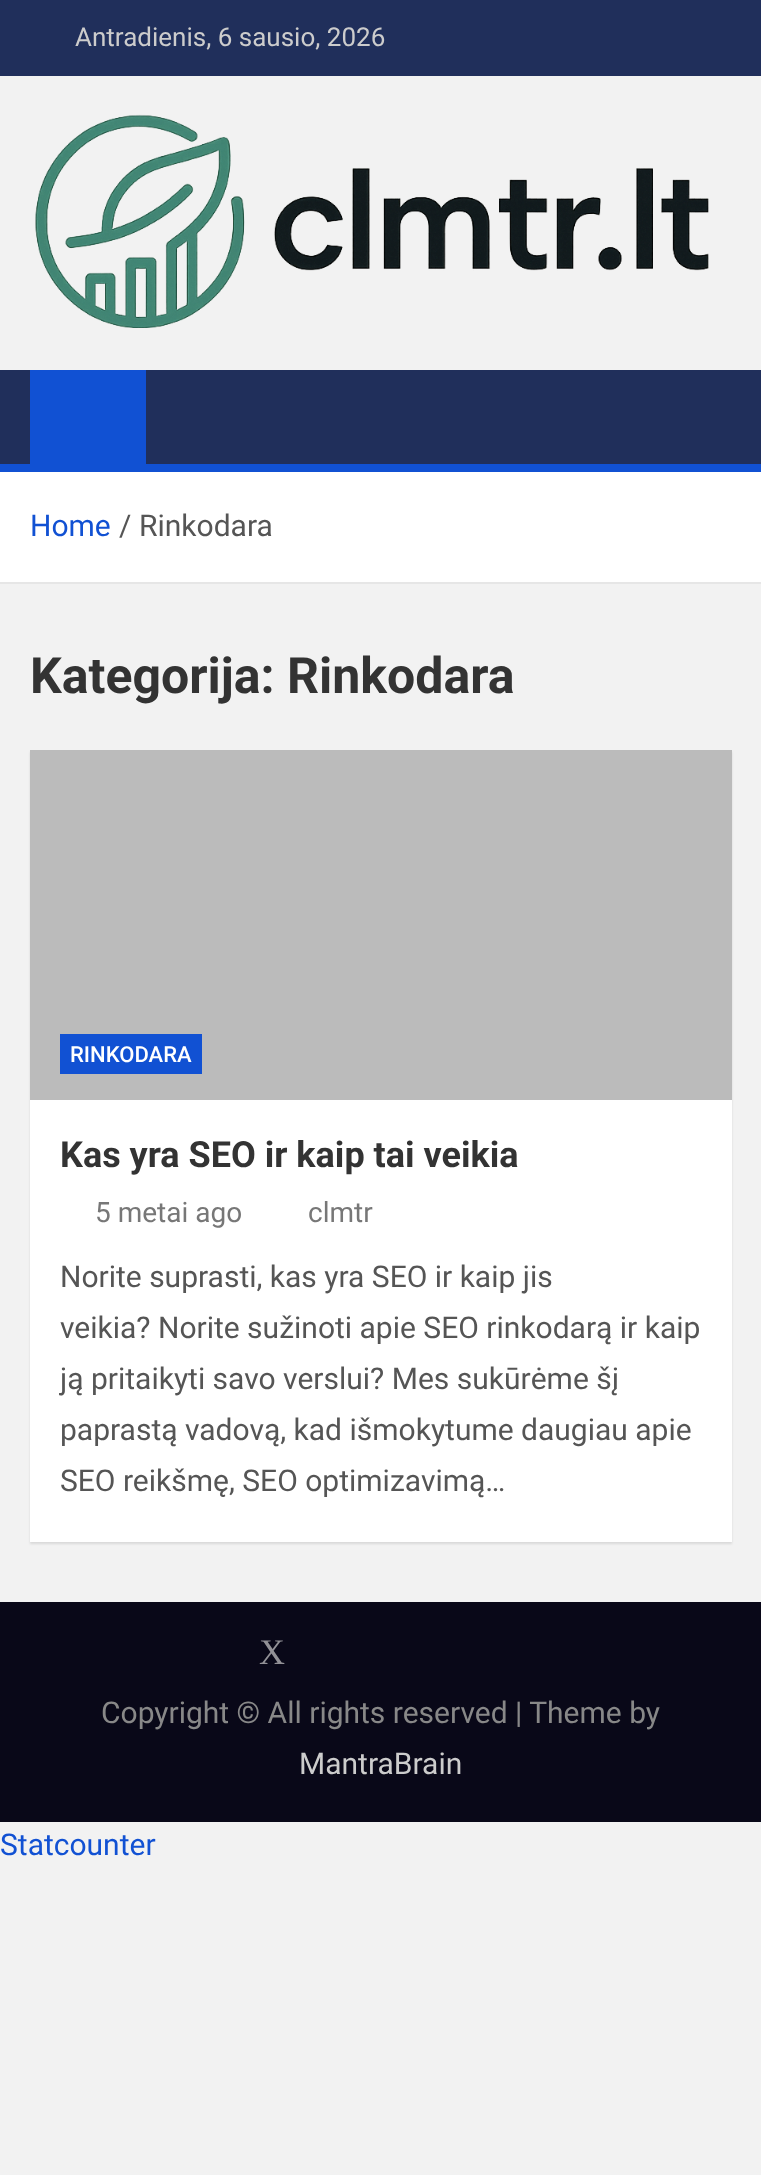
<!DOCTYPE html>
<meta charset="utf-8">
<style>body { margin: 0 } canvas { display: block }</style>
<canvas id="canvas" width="761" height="2175"></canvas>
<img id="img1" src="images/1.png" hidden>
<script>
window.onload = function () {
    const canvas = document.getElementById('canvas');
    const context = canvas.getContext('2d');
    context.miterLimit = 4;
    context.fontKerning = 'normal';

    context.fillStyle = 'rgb(242, 242, 242)';
    context.fillRect(0, 0, 761, 2175);
    context.fillStyle = 'rgb(32, 47, 91)';
    context.fillRect(0, 0, 761, 76);
    context.drawImage(document.getElementById('img1'), 35, 114, 674, 214);
    context.fillRect(0, 370, 761, 94);
    context.fillStyle = 'rgb(17, 81, 211)';
    context.fillRect(30, 370, 116, 94);
    context.fillRect(0, 464, 761, 8);
    context.fillStyle = 'rgb(255, 255, 255)';
    context.fillRect(0, 472, 761, 110);
    context.fillStyle = 'rgb(230, 230, 230)';
    context.fillRect(0, 582, 761, 2);
    context.fillStyle = 'rgba(0, 0, 0, 0.1)';
    context.filter = 'blur(1px)';
    context.beginPath();
    context.rect(30, 752, 702, 792);
    context.fill();
    context.filter = 'none';
    context.fillStyle = 'rgb(255, 255, 255)';
    context.fillRect(30, 1100, 702, 442);
    context.fillStyle = 'rgb(187, 187, 187)';
    context.fillRect(30, 750, 702, 350);
    context.fillStyle = 'rgb(17, 81, 211)';
    context.fillRect(60, 1034, 142, 40);
    context.fillStyle = 'rgb(9, 8, 24)';
    context.fillRect(0, 1602, 761, 220);
    context.font = '26px Roboto';
    context.fillStyle = 'rgb(204, 204, 204)';
    context.fillText('Antradienis, 6 sausio, 2026', 75, 46);
    context.font = '30px Roboto';
    context.fillStyle = 'rgb(17, 81, 211)';
    context.fillText('Home', 30, 536);
    context.fillStyle = 'rgb(85, 85, 85)';
    context.fillText('/', 119, 536);
    context.fillText('Rinkodara', 139, 536);
    context.font = 'bold 50px Roboto';
    context.fillStyle = 'rgb(51, 51, 51)';
    context.fillText('Kategorija: Rinkodara', 30, 693);
    context.font = '500 22px Roboto';
    context.fillStyle = 'rgb(255, 255, 255)';
    context.fillText('RINKODARA', 70, 1062);
    context.font = 'bold 36px Roboto';
    context.fillStyle = 'rgb(51, 51, 51)';
    context.fillText('Kas yra SEO ir kaip tai veikia', 60, 1167);
    context.font = '28px Roboto';
    context.fillStyle = 'rgb(119, 119, 119)';
    context.fillText('5 metai ago', 95, 1222);
    context.fillText('clmtr', 308, 1222);
    context.font = '30px Roboto';
    context.fillStyle = 'rgb(85, 85, 85)';
    context.fillText('Norite suprasti, kas yra SEO ir kaip jis', 60, 1287);
    context.fillText('veikia? Norite sužinoti apie SEO rinkodarą ir kaip', 60, 1338);
    context.fillText('ją pritaikyti savo verslui? Mes sukūrėme šį', 60, 1389);
    context.fillText('paprastą vadovą, kad išmokytume daugiau apie', 60, 1440);
    context.fillText('SEO reikšmę, SEO optimizavimą…', 60, 1491);
    context.font = '36px Liberation Serif';
    context.fillStyle = 'rgb(146, 145, 150)';
    context.fillText('X', 259, 1664);
    context.font = '30px Roboto';
    context.fillStyle = 'rgb(136, 136, 136)';
    context.fillText('Copyright © All rights reserved | Theme by', 101, 1723);
    context.fillStyle = 'rgb(204, 204, 204)';
    context.fillText('MantraBrain', 299, 1774);
    context.fillStyle = 'rgb(17, 81, 211)';
    context.fillText('Statcounter', 0, 1855);
};
</script>
